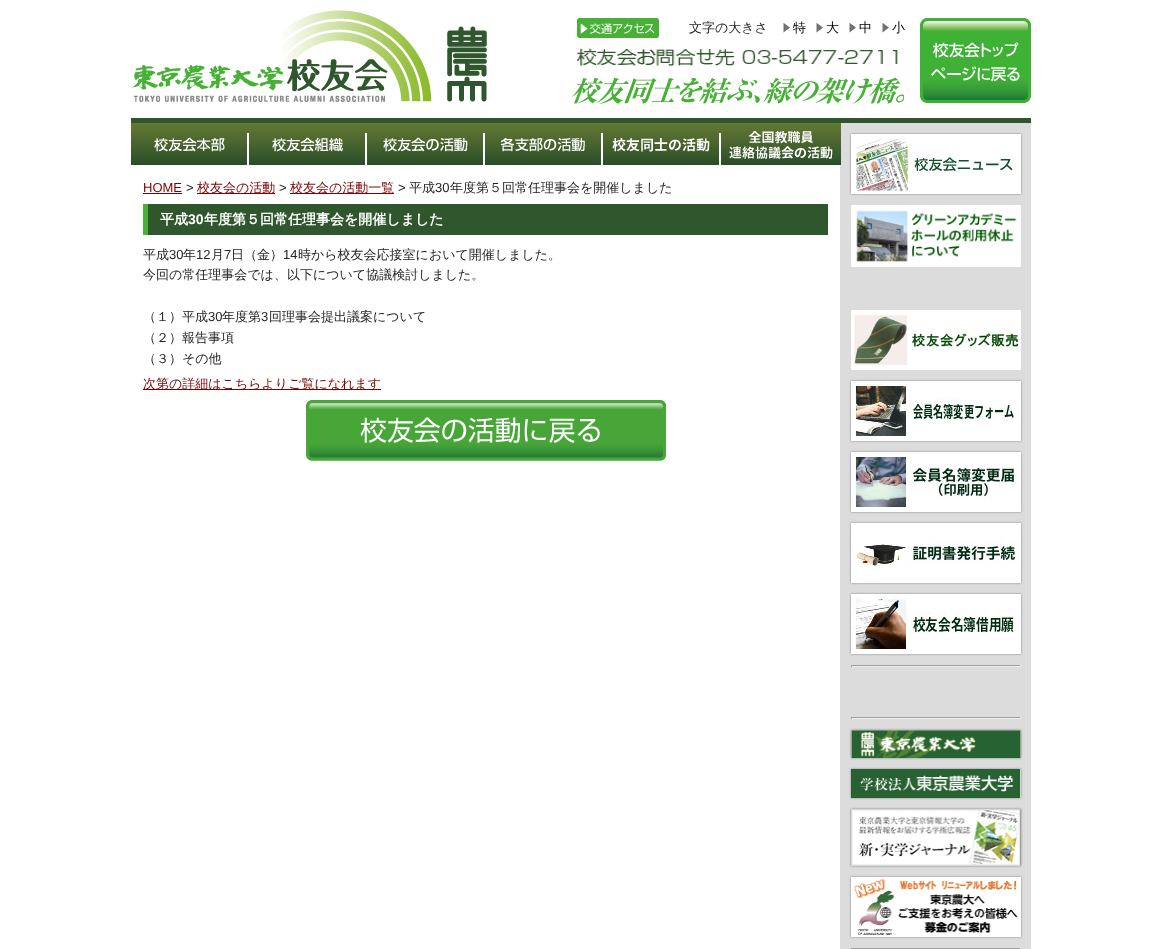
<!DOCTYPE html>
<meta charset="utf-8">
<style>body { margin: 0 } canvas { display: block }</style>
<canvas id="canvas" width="1162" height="949"></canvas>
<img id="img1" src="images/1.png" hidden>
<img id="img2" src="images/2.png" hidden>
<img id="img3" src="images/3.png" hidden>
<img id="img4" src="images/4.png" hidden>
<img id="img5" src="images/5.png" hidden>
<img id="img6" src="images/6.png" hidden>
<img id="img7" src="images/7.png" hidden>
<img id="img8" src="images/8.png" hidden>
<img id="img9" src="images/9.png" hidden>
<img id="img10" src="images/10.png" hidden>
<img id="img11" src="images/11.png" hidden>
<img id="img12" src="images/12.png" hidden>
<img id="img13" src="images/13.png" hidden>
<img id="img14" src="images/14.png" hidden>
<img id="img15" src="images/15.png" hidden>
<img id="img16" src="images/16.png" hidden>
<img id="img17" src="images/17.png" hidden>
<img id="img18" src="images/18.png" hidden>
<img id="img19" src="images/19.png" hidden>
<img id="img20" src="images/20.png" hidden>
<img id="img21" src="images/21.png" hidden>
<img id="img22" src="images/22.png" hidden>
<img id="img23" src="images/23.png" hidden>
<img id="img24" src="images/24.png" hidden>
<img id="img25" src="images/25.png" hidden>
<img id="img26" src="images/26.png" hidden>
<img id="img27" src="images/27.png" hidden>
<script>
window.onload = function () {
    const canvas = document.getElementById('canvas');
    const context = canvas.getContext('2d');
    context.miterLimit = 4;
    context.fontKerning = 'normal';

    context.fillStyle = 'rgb(255, 255, 255)';
    context.fillRect(0, 0, 1162, 949);
    context.drawImage(document.getElementById('img1'), 131, 10, 356, 92);
    context.drawImage(document.getElementById('img2'), 577, 18, 82, 20);
    context.drawImage(document.getElementById('img3'), 783, 23, 7, 10);
    context.drawImage(document.getElementById('img3'), 816, 23, 7, 10);
    context.drawImage(document.getElementById('img3'), 849, 23, 7, 10);
    context.drawImage(document.getElementById('img3'), 882, 23, 7, 10);
    context.drawImage(document.getElementById('img4'), 577, 48, 321, 18);
    context.drawImage(document.getElementById('img5'), 572, 77, 332, 27);
    context.drawImage(document.getElementById('img6'), 920, 18, 111, 85);
    context.fillStyle = 'rgb(220, 220, 220)';
    context.fillRect(840, 123, 191, 826);
    context.drawImage(document.getElementById('img7'), 131, 123, 710, 10);
    context.drawImage(document.getElementById('img8'), 131, 133, 116, 32);
    context.drawImage(document.getElementById('img9'), 154, 134, 71, 21);
    context.drawImage(document.getElementById('img8'), 249, 133, 116, 32);
    context.drawImage(document.getElementById('img10'), 272, 134, 71, 20);
    context.drawImage(document.getElementById('img8'), 367, 133, 116, 32);
    context.drawImage(document.getElementById('img11'), 383, 134, 85, 19);
    context.drawImage(document.getElementById('img8'), 485, 133, 116, 32);
    context.drawImage(document.getElementById('img12'), 499, 133, 87, 22);
    context.drawImage(document.getElementById('img8'), 603, 133, 116, 32);
    context.drawImage(document.getElementById('img13'), 612, 138, 98, 14);
    context.drawImage(document.getElementById('img14'), 721, 133, 120, 32);
    context.drawImage(document.getElementById('img15'), 729, 131, 104, 29);
    context.fillStyle = 'rgb(47, 86, 44)';
    context.fillRect(131, 118, 900, 5);
    context.fillStyle = 'rgb(128, 0, 0)';
    context.fillRect(143, 193, 39, 1);
    context.fillRect(197, 193, 78, 1);
    context.fillRect(290, 193, 104, 1);
    context.fillStyle = 'rgb(47, 86, 44)';
    context.fillRect(148, 204, 680, 31);
    context.fillStyle = 'rgb(70, 177, 53)';
    context.fillRect(143, 204, 5, 31);
    context.fillStyle = 'rgb(128, 0, 0)';
    context.fillRect(143, 389, 238, 1);
    context.drawImage(document.getElementById('img16'), 306, 400, 360, 61);
    context.fillStyle = 'rgb(133, 133, 133)';
    context.filter = 'blur(1px)';
    context.beginPath();
    context.rect(851, 134, 170, 60);
    context.fill();
    context.filter = 'none';
    context.drawImage(document.getElementById('img17'), 851, 134, 170, 60);
    context.drawImage(document.getElementById('img18'), 851, 205, 170, 62);
    context.drawImage(document.getElementById('img19'), 851, 310, 170, 60);
    context.filter = 'blur(1px)';
    context.beginPath();
    context.rect(851, 381, 170, 60);
    context.fill();
    context.filter = 'none';
    context.drawImage(document.getElementById('img20'), 851, 381, 170, 60);
    context.filter = 'blur(1px)';
    context.beginPath();
    context.rect(851, 452, 170, 60);
    context.fill();
    context.filter = 'none';
    context.drawImage(document.getElementById('img21'), 851, 452, 170, 60);
    context.filter = 'blur(1px)';
    context.beginPath();
    context.rect(851, 523, 170, 60);
    context.fill();
    context.filter = 'none';
    context.drawImage(document.getElementById('img22'), 851, 523, 170, 60);
    context.filter = 'blur(1px)';
    context.beginPath();
    context.rect(851, 594, 170, 60);
    context.fill();
    context.filter = 'none';
    context.drawImage(document.getElementById('img23'), 851, 594, 170, 60);
    context.fillStyle = 'rgb(159, 159, 159)';
    context.fillRect(851, 665, 170, 1);
    context.fillStyle = 'rgb(238, 238, 238)';
    context.fillRect(1020, 665, 1, 2);
    context.fillRect(851, 666, 170, 1);
    context.fillStyle = 'rgb(159, 159, 159)';
    context.fillRect(851, 665, 1, 2);
    context.fillRect(851, 717, 170, 1);
    context.fillStyle = 'rgb(238, 238, 238)';
    context.fillRect(1020, 717, 1, 2);
    context.fillRect(851, 718, 170, 1);
    context.fillStyle = 'rgb(159, 159, 159)';
    context.fillRect(851, 717, 1, 2);
    context.fillStyle = 'rgb(133, 133, 133)';
    context.filter = 'blur(1px)';
    context.beginPath();
    context.rect(851, 730, 170, 28);
    context.fill();
    context.filter = 'none';
    context.drawImage(document.getElementById('img24'), 851, 730, 170, 28);
    context.filter = 'blur(1px)';
    context.beginPath();
    context.rect(851, 769, 170, 29);
    context.fill();
    context.filter = 'none';
    context.drawImage(document.getElementById('img25'), 851, 769, 170, 29);
    context.filter = 'blur(1px)';
    context.beginPath();
    context.rect(851, 809, 170, 57);
    context.fill();
    context.filter = 'none';
    context.drawImage(document.getElementById('img26'), 851, 809, 169, 57);
    context.filter = 'blur(1px)';
    context.beginPath();
    context.rect(851, 877, 170, 60);
    context.fill();
    context.filter = 'none';
    context.drawImage(document.getElementById('img27'), 851, 877, 170, 60);
    context.fillStyle = 'rgb(159, 159, 159)';
    context.fillRect(851, 948, 170, 1);
    context.fillStyle = 'rgb(238, 238, 238)';
    context.fillRect(1020, 948, 1, 1);
    context.font = '500 13px WenQuanYi Zen Hei';
    context.fillStyle = 'rgb(37, 37, 37)';
    context.fillText('文字の大きさ', 689, 32);
    context.fillStyle = 'rgb(0, 0, 0)';
    context.fillText('特', 793, 32);
    context.fillText('大', 826, 32);
    context.fillText('中', 859, 32);
    context.fillText('小', 892, 32);
    context.font = '13px Liberation Sans';
    context.fillStyle = 'rgb(128, 0, 0)';
    context.fillText('HOME', 143, 192);
    context.fillStyle = 'rgb(37, 37, 37)';
    context.fillText('>', 186, 192);
    context.font = '500 13px WenQuanYi Zen Hei';
    context.fillStyle = 'rgb(128, 0, 0)';
    context.fillText('校友会の活動', 197, 192);
    context.font = '13px Liberation Sans';
    context.fillStyle = 'rgb(37, 37, 37)';
    context.fillText('>', 279, 192);
    context.font = '500 13px WenQuanYi Zen Hei';
    context.fillStyle = 'rgb(128, 0, 0)';
    context.fillText('校友会の活動一覧', 290, 192);
    context.font = '13px Liberation Sans';
    context.fillStyle = 'rgb(37, 37, 37)';
    context.fillText('>', 398, 192);
    context.font = '500 13px WenQuanYi Zen Hei';
    context.fillText('平成', 409, 192);
    context.font = '13px Liberation Sans';
    context.fillText('30', 435, 192);
    context.font = '500 13px WenQuanYi Zen Hei';
    context.fillText('年度第５回常任理事会を開催しました', 450, 192);
    context.font = 'bold 14px WenQuanYi Zen Hei';
    context.fillStyle = 'rgb(255, 255, 255)';
    context.fillText('平成', 160, 224);
    context.font = 'bold 14px Liberation Sans';
    context.fillText('30', 188, 224);
    context.font = 'bold 14px WenQuanYi Zen Hei';
    context.fillText('年度第５回常任理事会を開催しました', 204, 224);
    context.font = '500 13px WenQuanYi Zen Hei';
    context.fillStyle = 'rgb(37, 37, 37)';
    context.fillText('平成', 143, 259);
    context.font = '13px Liberation Sans';
    context.fillText('30', 169, 259);
    context.font = '500 13px WenQuanYi Zen Hei';
    context.fillText('年', 183, 259);
    context.font = '13px Liberation Sans';
    context.fillText('12', 196, 259);
    context.font = '500 13px WenQuanYi Zen Hei';
    context.fillText('月', 211, 259);
    context.font = '13px Liberation Sans';
    context.fillText('7', 224, 259);
    context.font = '500 13px WenQuanYi Zen Hei';
    context.fillText('日（金）', 231, 259);
    context.font = '13px Liberation Sans';
    context.fillText('14', 283, 259);
    context.font = '500 13px WenQuanYi Zen Hei';
    context.fillText('時から校友会応接室において開催しました。', 298, 259);
    context.fillText('今回の常任理事会では、以下について協議検討しました。', 143, 279);
    context.fillText('（１）平成', 143, 321);
    context.font = '13px Liberation Sans';
    context.fillText('30', 208, 321);
    context.font = '500 13px WenQuanYi Zen Hei';
    context.fillText('年度第', 222, 321);
    context.font = '13px Liberation Sans';
    context.fillText('3', 261, 321);
    context.font = '500 13px WenQuanYi Zen Hei';
    context.fillText('回理事会提出議案について', 269, 321);
    context.fillText('（２）報告事項', 143, 342);
    context.fillText('（３）その他', 143, 363);
    context.fillStyle = 'rgb(128, 0, 0)';
    context.fillText('次第の詳細はこちらよりご覧になれます', 143, 388);
};
</script>
